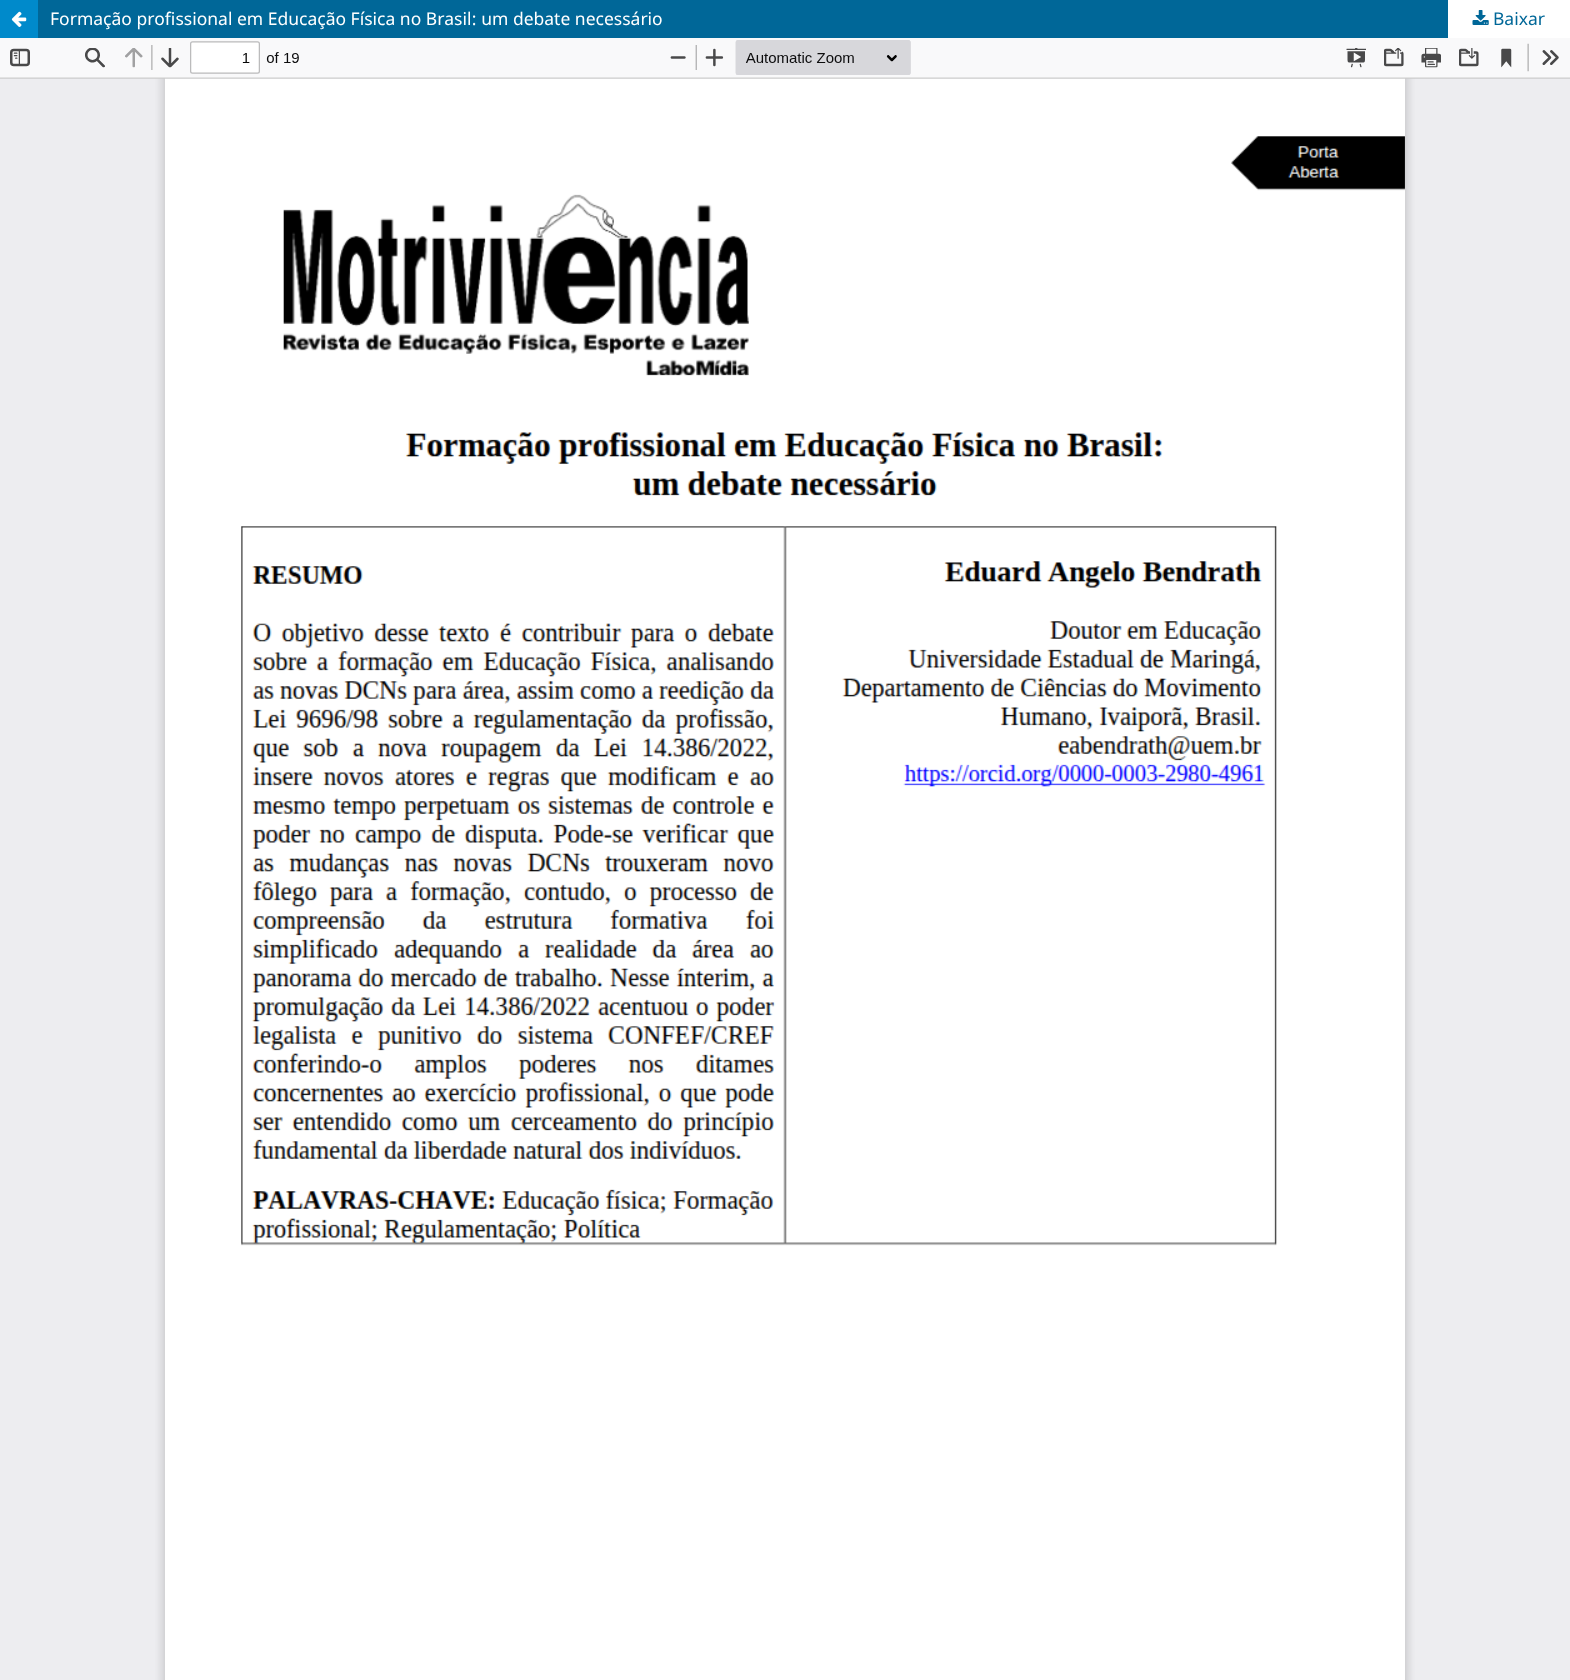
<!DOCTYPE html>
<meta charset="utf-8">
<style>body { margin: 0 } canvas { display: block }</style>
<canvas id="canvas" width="1570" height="1680"></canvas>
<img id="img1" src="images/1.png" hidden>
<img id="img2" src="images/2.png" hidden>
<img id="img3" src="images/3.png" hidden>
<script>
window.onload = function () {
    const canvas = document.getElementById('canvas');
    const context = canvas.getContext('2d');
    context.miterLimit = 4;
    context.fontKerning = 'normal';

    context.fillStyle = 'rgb(255, 255, 255)';
    context.fillRect(0, 0, 1570, 1680);
    context.fillStyle = 'rgb(0, 103, 152)';
    context.fillRect(38, 0, 1410, 38);
    context.fillStyle = 'rgb(0, 138, 203)';
    context.fillRect(0, 0, 38, 38);
    context.drawImage(document.getElementById('img1'), 11, 11, 16, 16);
    context.drawImage(document.getElementById('img2'), 1472, 10, 17, 15);
    context.drawImage(document.getElementById('img3'), 0, 38, 1570, 1642);
    context.font = '17.5px Noto Sans';
    context.fillStyle = 'rgb(255, 255, 255)';
    context.fillText('Formação profissional em Educação Física no Brasil: um debate necessário', 50, 25);
    context.fillStyle = 'rgb(0, 103, 152)';
    context.fillText('Baixar', 1493, 25);
};
</script>
